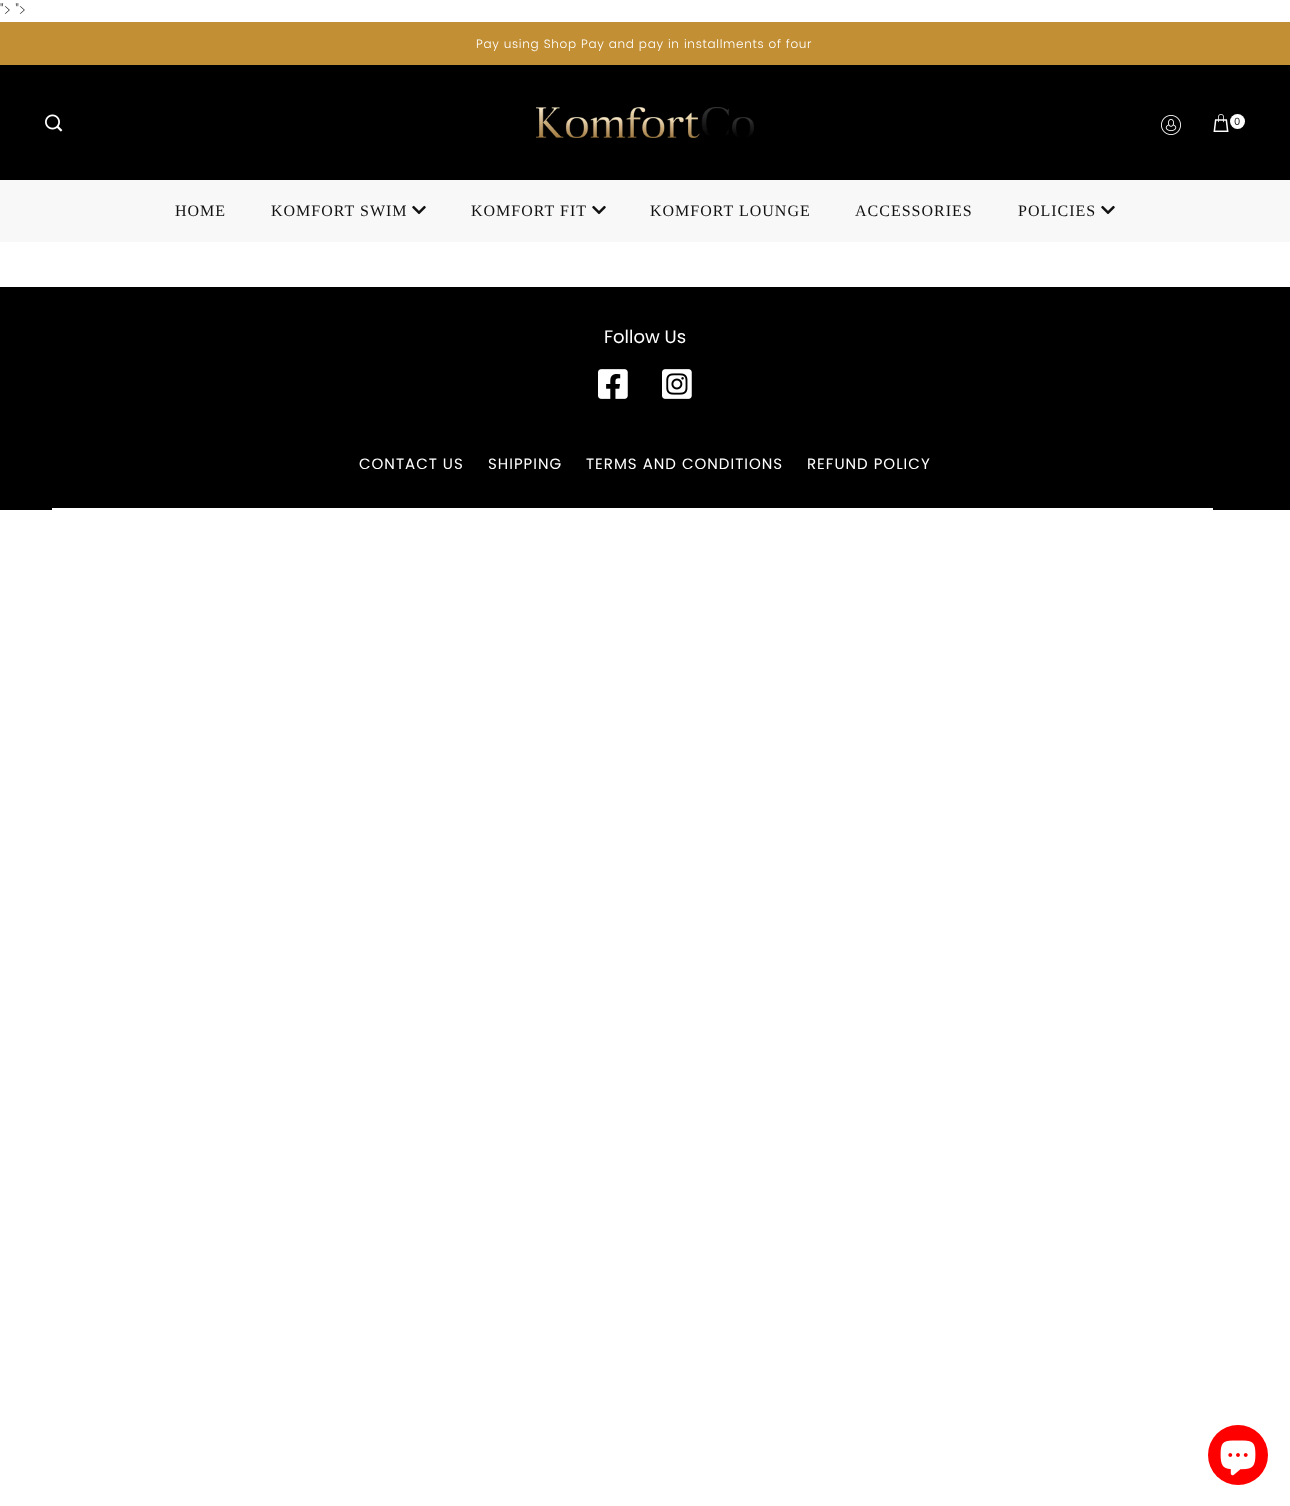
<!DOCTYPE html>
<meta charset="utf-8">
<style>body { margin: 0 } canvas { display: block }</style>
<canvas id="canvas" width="1290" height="1506"></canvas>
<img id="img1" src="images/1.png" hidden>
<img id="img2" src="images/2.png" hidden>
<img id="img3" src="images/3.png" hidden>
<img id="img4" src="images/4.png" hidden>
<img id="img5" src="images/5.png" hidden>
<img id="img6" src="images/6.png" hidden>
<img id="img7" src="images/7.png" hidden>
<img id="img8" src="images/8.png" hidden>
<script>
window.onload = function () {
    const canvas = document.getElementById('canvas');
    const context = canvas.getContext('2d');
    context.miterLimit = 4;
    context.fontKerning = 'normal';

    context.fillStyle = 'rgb(255, 255, 255)';
    context.fillRect(0, 0, 1290, 1506);
    context.fillStyle = 'rgb(194, 143, 53)';
    context.fillRect(0, 22, 1290, 43);
    context.fillStyle = 'rgb(0, 0, 0)';
    context.fillRect(0, 65, 1290, 115);
    context.drawImage(document.getElementById('img1'), 45, 114, 18, 18);
    context.drawImage(document.getElementById('img2'), 536, 107, 218, 31);
    context.drawImage(document.getElementById('img3'), 1161, 115, 20, 20);
    context.drawImage(document.getElementById('img4'), 1213, 114, 16, 18);
    context.fillStyle = 'rgb(255, 255, 255)';
    context.beginPath();
    context.arc(1237.5, 121.5, 7.5, 0, 2 * Math.PI);
    context.fill();
    context.fillStyle = 'rgb(248, 248, 248)';
    context.fillRect(0, 180, 1290, 62);
    context.drawImage(document.getElementById('img5'), 412, 205, 14, 10);
    context.drawImage(document.getElementById('img5'), 592, 205, 14, 10);
    context.drawImage(document.getElementById('img5'), 1101, 205, 14, 10);
    context.fillStyle = 'rgb(0, 0, 0)';
    context.fillRect(0, 287, 1290, 223);
    context.drawImage(document.getElementById('img6'), 598, 369, 30, 30);
    context.drawImage(document.getElementById('img7'), 662, 369, 30, 30);
    context.fillStyle = 'rgb(255, 255, 255)';
    context.fillRect(52, 508, 1161, 2);
    context.fillStyle = 'rgb(255, 0, 0)';
    context.beginPath();
    context.arc(1238, 1455, 30, 0, 2 * Math.PI);
    context.fill();
    context.drawImage(document.getElementById('img8'), 1220, 1440, 36, 36);
    context.font = '200 16px Poppins';
    context.fillStyle = 'rgb(17, 17, 17)';
    context.fillText('"> ">', 0, 16);
    context.letterSpacing = '0.7px';
    context.wordSpacing = '0.25px';
    context.font = '300 12px Poppins';
    context.fillStyle = 'rgb(255, 255, 255)';
    context.fillText('Pay using Shop Pay and pay in installments of four', 476, 48);
    context.letterSpacing = '0px';
    context.wordSpacing = '0px';
    context.font = '10px Poppins';
    context.fillStyle = 'rgb(17, 17, 17)';
    context.fillText('0', 1234, 125);
    context.letterSpacing = '1px';
    context.font = '16px Liberation Serif';
    context.fillText('HOME', 175, 216);
    context.fillText('KOMFORT SWIM', 271, 216);
    context.fillText('KOMFORT FIT', 471, 216);
    context.fillText('KOMFORT LOUNGE', 650, 216);
    context.fillText('ACCESSORIES', 855, 216);
    context.fillText('POLICIES', 1018, 216);
    context.letterSpacing = '0px';
    context.font = '18px Poppins';
    context.fillStyle = 'rgb(255, 255, 255)';
    context.fillText('Follow Us', 604, 343);
    context.letterSpacing = '1px';
    context.font = '15px Poppins';
    context.fillText('CONTACT US', 359, 469);
    context.fillText('SHIPPING', 488, 469);
    context.fillText('TERMS AND CONDITIONS', 586, 469);
    context.fillText('REFUND POLICY', 807, 469);
};
</script>
